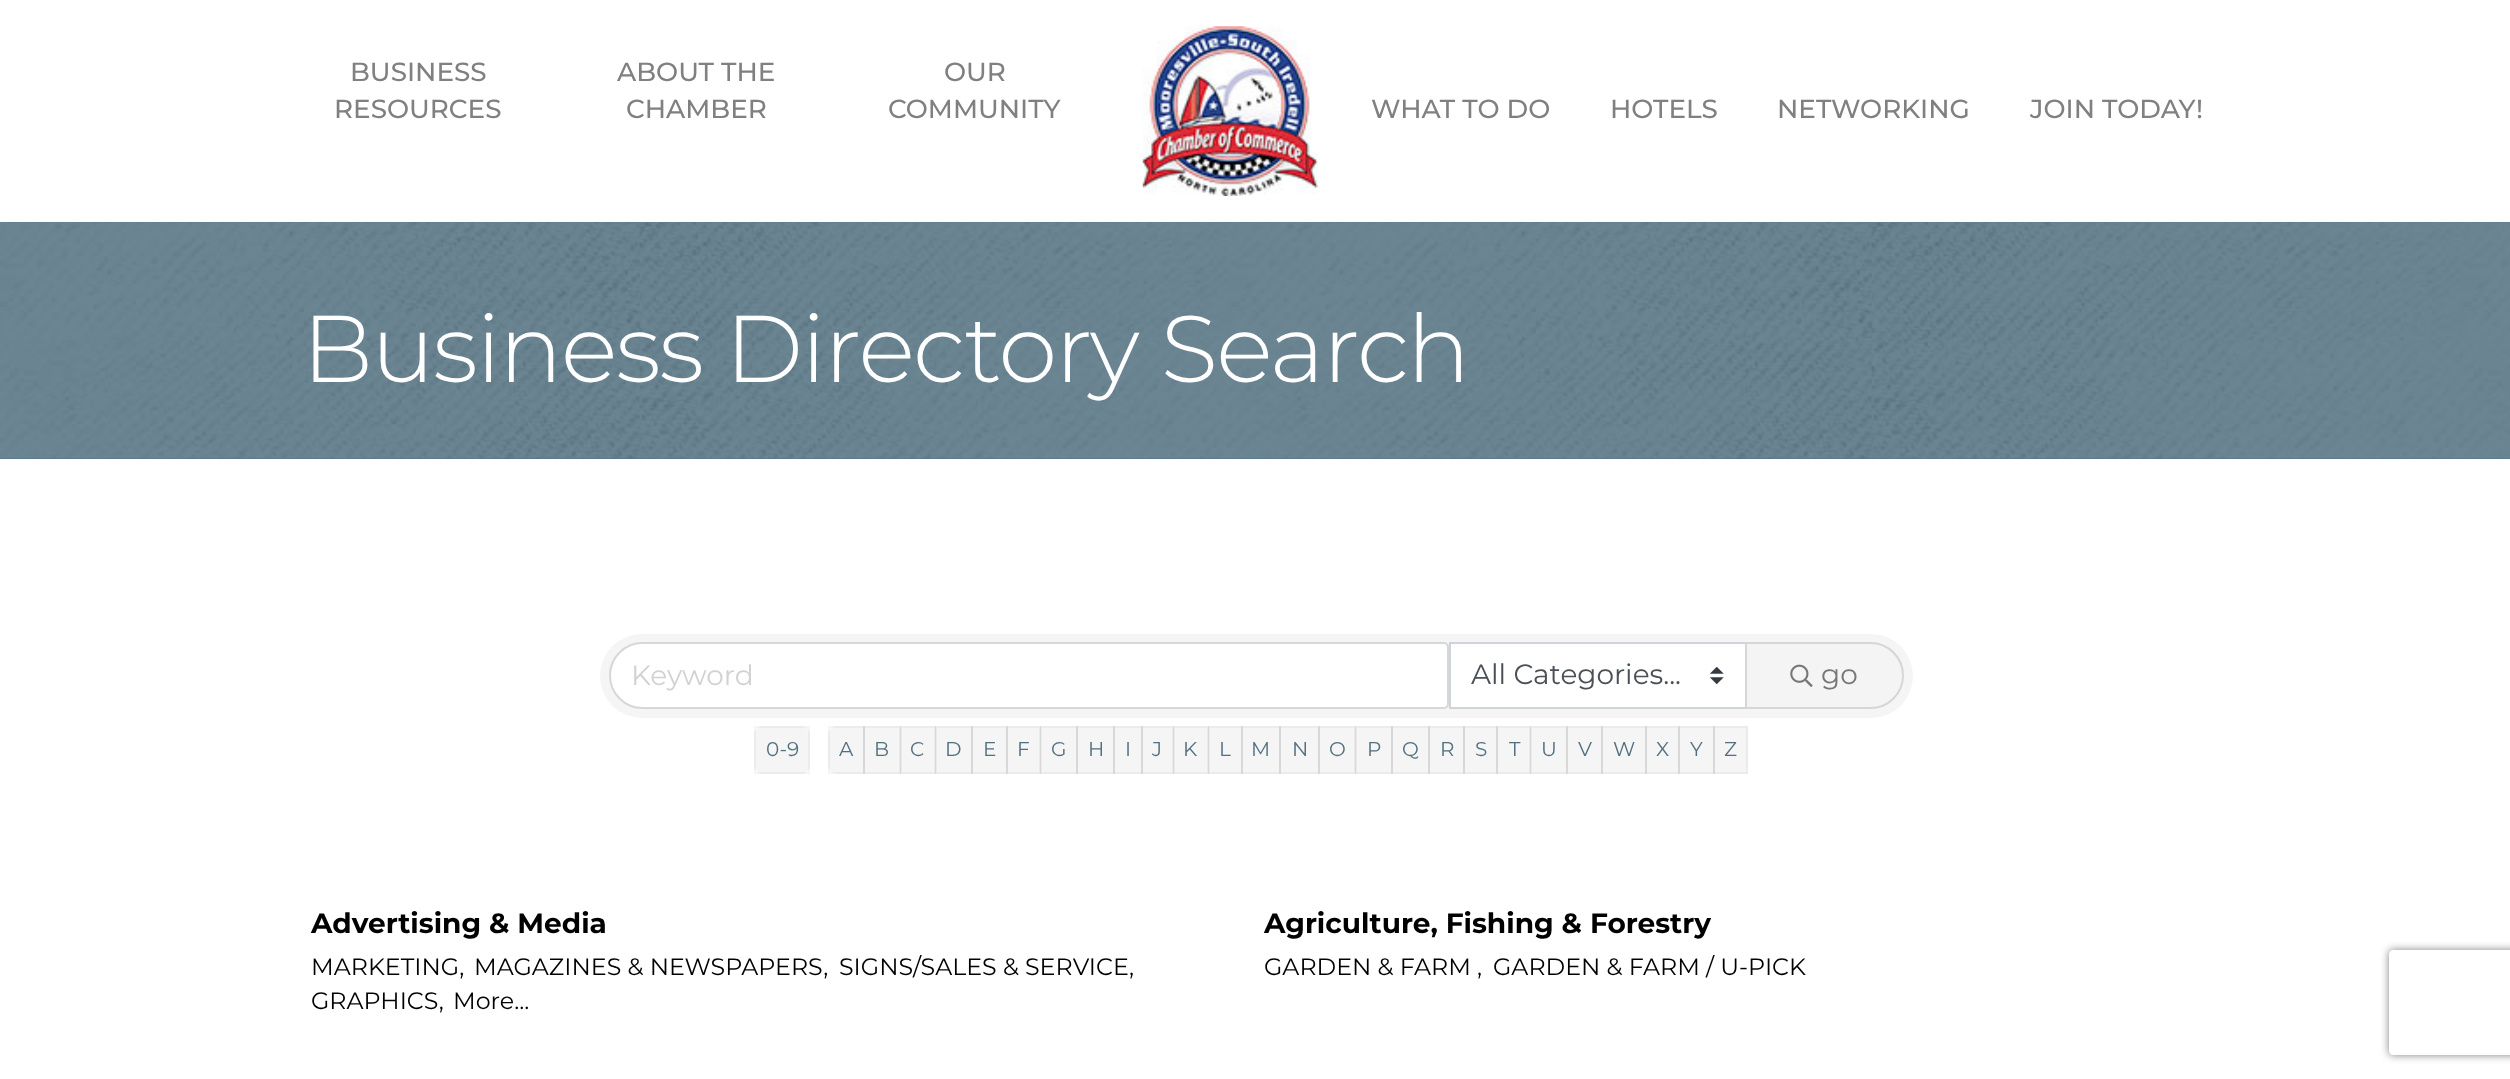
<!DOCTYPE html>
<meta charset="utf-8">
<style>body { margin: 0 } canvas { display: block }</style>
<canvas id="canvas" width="2510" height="1079"></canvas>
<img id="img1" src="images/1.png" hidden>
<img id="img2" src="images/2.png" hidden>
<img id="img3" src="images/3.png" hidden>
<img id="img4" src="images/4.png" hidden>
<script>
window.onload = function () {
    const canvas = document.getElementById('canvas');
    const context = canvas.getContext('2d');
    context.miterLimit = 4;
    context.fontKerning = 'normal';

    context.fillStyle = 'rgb(255, 255, 255)';
    context.fillRect(0, 0, 2510, 1079);
    context.drawImage(document.getElementById('img1'), 1142, 26, 176, 170);
    context.fillStyle = 'rgb(85, 115, 130)';
    context.fillRect(0, 222, 2510, 237);
    context.drawImage(document.getElementById('img2'), 0, 222, 2510, 237);
    context.fillStyle = 'rgb(245, 245, 245)';
    context.beginPath();
    context.roundRect(600, 634, 1313, 84, 42);
    context.fill();
    context.fillStyle = 'rgb(255, 255, 255)';
    context.beginPath();
    context.roundRect(611, 644, 836, 63, [31.5, 4, 4, 31.5]);
    context.fill();
    context.beginPath();
    context.roundRect(610, 643, 838, 65, [32.5, 4, 4, 32.5]);
    context.strokeStyle = 'rgba(0, 0, 0, 0.12)';
    context.lineWidth = 2;
    context.stroke();
    context.fillRect(1451, 644, 294, 63);
    context.drawImage(document.getElementById('img3'), 1710, 667, 14, 17);
    context.strokeStyle = 'rgb(206, 212, 218)';
    context.strokeRect(1450, 643, 296, 65);
    context.fillStyle = 'rgb(244, 244, 244)';
    context.beginPath();
    context.roundRect(1746, 643, 157, 65, [0, 32.5, 32.5, 0]);
    context.fill();
    context.strokeStyle = 'rgb(214, 214, 214)';
    context.stroke();
    context.drawImage(document.getElementById('img4'), 1790, 664, 23, 23);
    context.fillStyle = 'rgb(245, 245, 245)';
    context.beginPath();
    context.roundRect(754, 726, 56, 48, 9);
    context.fill();
    context.strokeStyle = 'rgba(0, 0, 0, 0.04)';
    context.strokeRect(755, 727, 54, 46);
    context.beginPath();
    context.roundRect(828, 726, 37, 48, [9, 0, 0, 9]);
    context.fill();
    context.strokeRect(829, 727, 35, 46);
    context.fillStyle = 'rgba(0, 0, 0, 0.04)';
    context.fillRect(863, 726, 38, 48);
    context.strokeRect(864, 727, 36, 46);
    context.fillRect(900, 726, 36, 48);
    context.strokeRect(901, 727, 34, 46);
    context.fillRect(935, 726, 38, 48);
    context.strokeRect(936, 727, 36, 46);
    context.fillRect(971, 726, 37, 48);
    context.strokeRect(972, 727, 35, 46);
    context.fillRect(1006, 726, 35, 48);
    context.strokeRect(1007, 727, 33, 46);
    context.fillRect(1040, 726, 38, 48);
    context.strokeRect(1041, 727, 36, 46);
    context.fillRect(1076, 726, 39, 48);
    context.strokeRect(1077, 727, 37, 46);
    context.fillRect(1113, 726, 30, 48);
    context.strokeRect(1114, 727, 28, 46);
    context.fillRect(1141, 726, 33, 48);
    context.strokeRect(1142, 727, 31, 46);
    context.fillRect(1173, 726, 36, 48);
    context.strokeRect(1174, 727, 34, 46);
    context.fillRect(1208, 726, 35, 48);
    context.strokeRect(1209, 727, 33, 46);
    context.fillRect(1241, 726, 40, 48);
    context.strokeRect(1242, 727, 38, 46);
    context.fillRect(1279, 726, 41, 48);
    context.strokeRect(1280, 727, 39, 46);
    context.fillRect(1318, 726, 38, 48);
    context.strokeRect(1319, 727, 36, 46);
    context.fillRect(1355, 726, 38, 48);
    context.strokeRect(1356, 727, 36, 46);
    context.fillRect(1391, 726, 39, 48);
    context.strokeRect(1392, 727, 37, 46);
    context.fillRect(1428, 726, 37, 48);
    context.strokeRect(1429, 727, 35, 46);
    context.fillRect(1463, 726, 35, 48);
    context.strokeRect(1464, 727, 33, 46);
    context.fillRect(1496, 726, 35, 48);
    context.strokeRect(1497, 727, 33, 46);
    context.fillRect(1530, 726, 38, 48);
    context.strokeRect(1531, 727, 36, 46);
    context.fillRect(1566, 726, 37, 48);
    context.strokeRect(1567, 727, 35, 46);
    context.fillRect(1601, 726, 46, 48);
    context.strokeRect(1602, 727, 44, 46);
    context.fillRect(1645, 726, 35, 48);
    context.strokeRect(1646, 727, 33, 46);
    context.fillRect(1678, 726, 37, 48);
    context.strokeRect(1679, 727, 35, 46);
    context.fillRect(1713, 726, 35, 48);
    context.strokeRect(1714, 727, 33, 46);
    context.save();
    context.beginPath();
    context.moveTo(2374, 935);
    context.lineTo(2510, 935);
    context.lineTo(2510, 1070);
    context.lineTo(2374, 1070);
    context.closePath();
    context.moveTo(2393, 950);
    context.lineTo(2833, 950);
    context.bezierCurveTo(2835, 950, 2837, 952, 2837, 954);
    context.lineTo(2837, 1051);
    context.bezierCurveTo(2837, 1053, 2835, 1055, 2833, 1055);
    context.lineTo(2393, 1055);
    context.bezierCurveTo(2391, 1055, 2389, 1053, 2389, 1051);
    context.lineTo(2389, 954);
    context.bezierCurveTo(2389, 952, 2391, 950, 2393, 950);
    context.closePath();
    context.clip('evenodd');
    context.fillStyle = 'rgb(128, 128, 128)';
    context.filter = 'blur(4.5px)';
    context.beginPath();
    context.roundRect(2389, 950, 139, 105, 4);
    context.fill();
    context.filter = 'none';
    context.restore();
    context.font = '500 26.25px Montserrat';
    context.fillStyle = 'rgb(128, 128, 128)';
    context.fillText('BUSINESS', 350, 81);
    context.fillText('RESOURCES', 334, 118);
    context.fillText('ABOUT THE', 617, 81);
    context.fillText('CHAMBER', 626, 118);
    context.fillText('OUR', 944, 81);
    context.fillText('COMMUNITY', 888, 118);
    context.fillText('WHAT TO DO', 1371, 118);
    context.fillText('HOTELS', 1610, 118);
    context.fillText('NETWORKING', 1777, 118);
    context.fillText('JOIN TODAY!', 2030, 118);
    context.letterSpacing = '-1.75px';
    context.font = '300 94.5px Montserrat';
    context.fillStyle = 'rgb(255, 255, 255)';
    context.fillText('Business Directory Search', 302, 382);
    context.letterSpacing = '0px';
    context.font = '28px Montserrat';
    context.fillStyle = 'rgb(210, 210, 210)';
    context.fillText('Keyword', 631, 685);
    context.fillStyle = 'rgb(73, 80, 87)';
    context.fillText('All Categories...', 1471, 684);
    context.fillStyle = 'rgb(119, 119, 119)';
    context.fillText('go', 1821, 684);
    context.font = '20px Montserrat';
    context.fillStyle = 'rgb(81, 112, 127)';
    context.fillText('0-9', 766, 756);
    context.fillText('A', 839, 756);
    context.fillText('B', 874, 756);
    context.fillText('C', 910, 756);
    context.fillText('D', 945, 756);
    context.fillText('E', 983, 756);
    context.fillText('F', 1017, 756);
    context.fillText('G', 1051, 756);
    context.fillText('H', 1088, 756);
    context.fillText('I', 1125, 756);
    context.fillText('J', 1152, 756);
    context.fillText('K', 1183, 756);
    context.fillText('L', 1219, 756);
    context.fillText('M', 1251, 756);
    context.fillText('N', 1292, 756);
    context.fillText('O', 1329, 756);
    context.fillText('P', 1367, 756);
    context.fillText('Q', 1402, 756);
    context.fillText('R', 1440, 756);
    context.fillText('S', 1475, 756);
    context.fillText('T', 1509, 756);
    context.fillText('U', 1541, 756);
    context.fillText('V', 1578, 756);
    context.fillText('W', 1613, 756);
    context.fillText('X', 1656, 756);
    context.fillText('Y', 1690, 756);
    context.fillText('Z', 1724, 756);
    context.font = 'bold 28px Montserrat';
    context.fillStyle = 'rgb(0, 0, 0)';
    context.fillText('Advertising & Media', 311, 933);
    context.font = '23.75px Montserrat';
    context.fillText('MARKETING,', 311, 975);
    context.fillText('MAGAZINES & NEWSPAPERS,', 474, 975);
    context.fillText('SIGNS/SALES & SERVICE,', 839, 975);
    context.fillText('GRAPHICS,', 311, 1009);
    context.fillText('More...', 453, 1009);
    context.font = 'bold 28px Montserrat';
    context.fillText('Agriculture, Fishing & Forestry', 1264, 933);
    context.font = '23.75px Montserrat';
    context.fillText('GARDEN & FARM ,', 1264, 975);
    context.fillText('GARDEN & FARM / U-PICK', 1493, 975);
};
</script>
